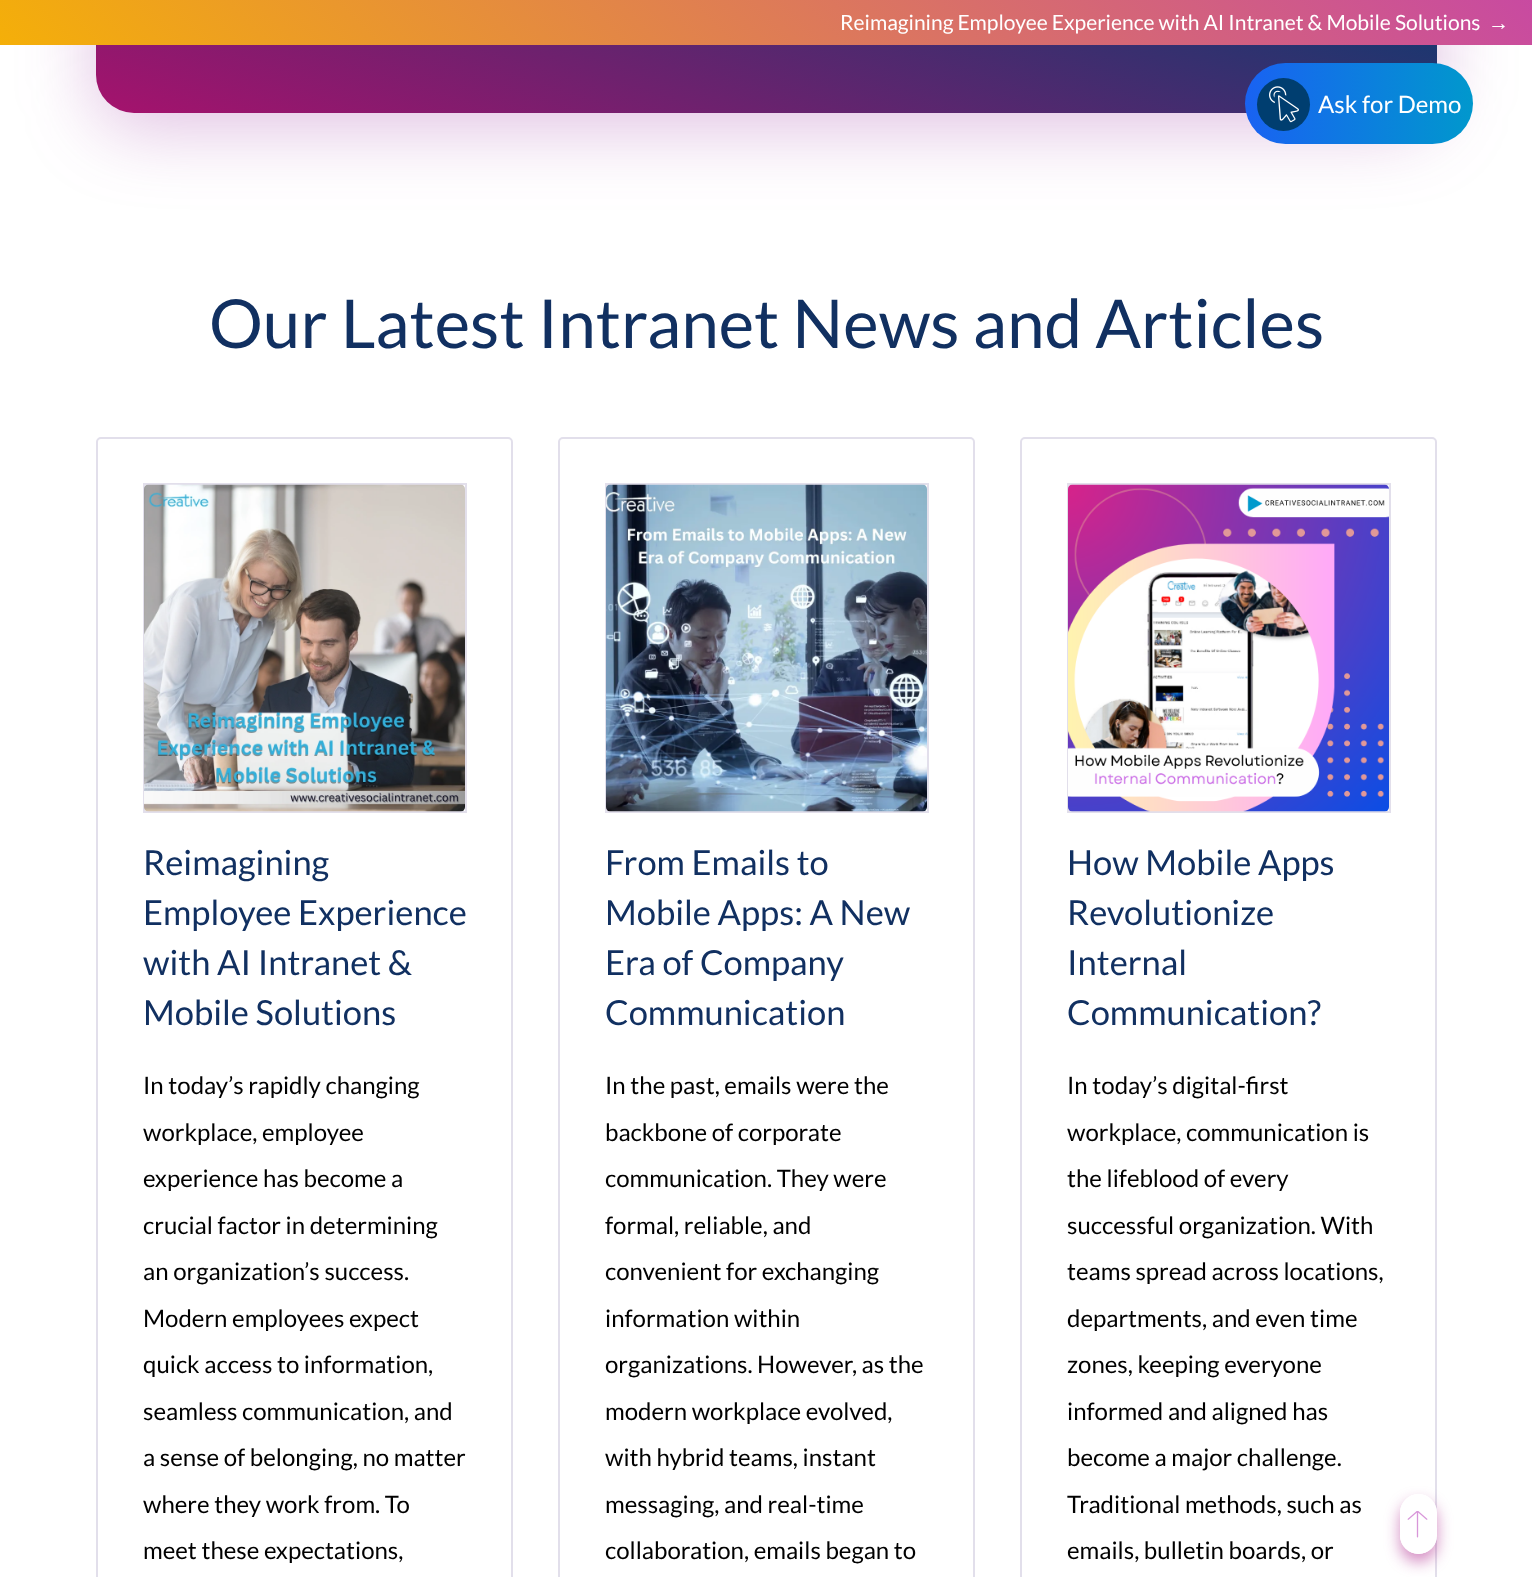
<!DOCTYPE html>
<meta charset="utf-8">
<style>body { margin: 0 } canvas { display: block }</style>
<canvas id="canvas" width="1532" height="1577"></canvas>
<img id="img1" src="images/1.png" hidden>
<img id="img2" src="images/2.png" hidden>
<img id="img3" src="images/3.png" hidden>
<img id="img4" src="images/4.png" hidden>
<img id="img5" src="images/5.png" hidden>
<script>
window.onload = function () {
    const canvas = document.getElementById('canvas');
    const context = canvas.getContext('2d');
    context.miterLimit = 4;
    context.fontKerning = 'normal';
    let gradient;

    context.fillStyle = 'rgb(255, 255, 255)';
    context.fillRect(0, 0, 1532, 1577);
    context.fillStyle = 'rgba(151, 48, 159, 0.3)';
    context.filter = 'blur(37.5px)';
    context.beginPath();
    context.roundRect(96, -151, 1341, 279, 38);
    context.fill();
    context.filter = 'none';
    gradient = context.createLinearGradient(636, 290, 897, -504);
    gradient.addColorStop(0.01, 'rgb(163, 19, 109)');
    gradient.addColorStop(0.7, 'rgb(0, 62, 112)');
    context.fillStyle = gradient;
    context.beginPath();
    context.roundRect(96, -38, 1341, 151, 38);
    context.fill();
    gradient = context.createLinearGradient(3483, -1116, 1116, 1251);
    gradient.addColorStop(0, 'rgb(50, 197, 255)');
    gradient.addColorStop(0.51, 'rgb(182, 32, 224)');
    gradient.addColorStop(1, 'rgb(247, 181, 0)');
    context.fillStyle = gradient;
    context.fillRect(0, 0, 1532, 45);
    gradient = context.createLinearGradient(1245, 104, 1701, 103);
    gradient.addColorStop(0, 'rgb(25, 98, 242)');
    gradient.addColorStop(0.51, 'rgb(0, 153, 204)');
    gradient.addColorStop(1, 'rgb(25, 98, 242)');
    context.fillStyle = gradient;
    context.beginPath();
    context.roundRect(1245, 63, 228, 81, 40.5);
    context.fill();
    context.fillStyle = 'rgb(0, 62, 112)';
    context.beginPath();
    context.arc(1283.5, 104.5, 26.5, 0, 2 * Math.PI);
    context.fill();
    context.drawImage(document.getElementById('img1'), 1269, 86, 30, 37);
    context.beginPath();
    context.roundRect(97, 438, 415, 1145, 4);
    context.strokeStyle = 'rgb(226, 223, 235)';
    context.lineWidth = 2;
    context.stroke();
    context.strokeRect(144, 484, 322, 328);
    context.drawImage(document.getElementById('img2'), 144, 484, 321, 328);
    context.beginPath();
    context.roundRect(559, 438, 415, 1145, 4);
    context.stroke();
    context.strokeRect(606, 484, 322, 328);
    context.drawImage(document.getElementById('img3'), 606, 484, 321, 328);
    context.beginPath();
    context.roundRect(1021, 438, 415, 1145, 4);
    context.stroke();
    context.strokeRect(1068, 484, 322, 328);
    context.drawImage(document.getElementById('img4'), 1068, 484, 321, 328);
    context.save();
    context.beginPath();
    context.moveTo(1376, 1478);
    context.lineTo(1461, 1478);
    context.lineTo(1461, 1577);
    context.lineTo(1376, 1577);
    context.closePath();
    context.moveTo(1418.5, 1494);
    context.bezierCurveTo(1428.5, 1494, 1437, 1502.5, 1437, 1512.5);
    context.lineTo(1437, 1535.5);
    context.bezierCurveTo(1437, 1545.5, 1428.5, 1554, 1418.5, 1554);
    context.bezierCurveTo(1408.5, 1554, 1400, 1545.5, 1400, 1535.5);
    context.lineTo(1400, 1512.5);
    context.bezierCurveTo(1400, 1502.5, 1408.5, 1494, 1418.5, 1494);
    context.closePath();
    context.clip('evenodd');
    context.fillStyle = 'rgba(166, 14, 128, 0.48)';
    context.filter = 'blur(7.5px)';
    context.beginPath();
    context.roundRect(1400, 1502, 37, 60, 18.5);
    context.fill();
    context.filter = 'none';
    context.restore();
    context.beginPath();
    context.roundRect(1401, 1495, 35, 58, 17.5);
    context.strokeStyle = 'rgb(255, 255, 255)';
    context.stroke();
    context.drawImage(document.getElementById('img5'), 1407, 1511, 21, 27);
    context.font = '21px Lato';
    context.fillStyle = 'rgb(255, 255, 255)';
    context.fillText('Reimagining Employee Experience with AI Intranet & Mobile Solutions', 840, 30);
    context.font = '21px Liberation Sans';
    context.fillText('→', 1488, 30);
    context.font = '24px Lato';
    context.fillText('Ask for Demo', 1318, 113);
    context.font = '67.5px Lato';
    context.fillStyle = 'rgb(17, 48, 97)';
    context.fillText('Our Latest Intranet News and Articles', 209, 348);
    context.font = '34.5px Lato';
    context.fillText('Reimagining', 143, 875);
    context.fillText('Employee Experience', 143, 925);
    context.fillText('with AI Intranet &', 143, 975);
    context.fillText('Mobile Solutions', 143, 1025);
    context.font = '24px Lato';
    context.fillStyle = 'rgb(0, 0, 0)';
    context.fillText('In today’s rapidly changing', 143, 1094);
    context.fillText('workplace, employee', 143, 1141);
    context.fillText('experience has become a', 143, 1187);
    context.fillText('crucial factor in determining', 143, 1234);
    context.fillText('an organization’s success.', 143, 1280);
    context.fillText('Modern employees expect', 143, 1327);
    context.fillText('quick access to information,', 143, 1373);
    context.fillText('seamless communication, and', 143, 1420);
    context.fillText('a sense of belonging, no matter', 143, 1466);
    context.fillText('where they work from. To', 143, 1513);
    context.fillText('meet these expectations,', 143, 1559);
    context.font = '34.5px Lato';
    context.fillStyle = 'rgb(17, 48, 97)';
    context.fillText('From Emails to', 605, 875);
    context.fillText('Mobile Apps: A New', 605, 925);
    context.fillText('Era of Company', 605, 975);
    context.fillText('Communication', 605, 1025);
    context.font = '24px Lato';
    context.fillStyle = 'rgb(0, 0, 0)';
    context.fillText('In the past, emails were the', 605, 1094);
    context.fillText('backbone of corporate', 605, 1141);
    context.fillText('communication. They were', 605, 1187);
    context.fillText('formal, reliable, and', 605, 1234);
    context.fillText('convenient for exchanging', 605, 1280);
    context.fillText('information within', 605, 1327);
    context.fillText('organizations. However, as the', 605, 1373);
    context.fillText('modern workplace evolved,', 605, 1420);
    context.fillText('with hybrid teams, instant', 605, 1466);
    context.fillText('messaging, and real-time', 605, 1513);
    context.fillText('collaboration, emails began to', 605, 1559);
    context.font = '34.5px Lato';
    context.fillStyle = 'rgb(17, 48, 97)';
    context.fillText('How Mobile Apps', 1067, 875);
    context.fillText('Revolutionize', 1067, 925);
    context.fillText('Internal', 1067, 975);
    context.fillText('Communication?', 1067, 1025);
    context.font = '24px Lato';
    context.fillStyle = 'rgb(0, 0, 0)';
    context.fillText('In today’s digital-first', 1067, 1094);
    context.fillText('workplace, communication is', 1067, 1141);
    context.fillText('the lifeblood of every', 1067, 1187);
    context.fillText('successful organization. With', 1067, 1234);
    context.fillText('teams spread across locations,', 1067, 1280);
    context.fillText('departments, and even time', 1067, 1327);
    context.fillText('zones, keeping everyone', 1067, 1373);
    context.fillText('informed and aligned has', 1067, 1420);
    context.fillText('become a major challenge.', 1067, 1466);
    context.fillText('Traditional methods, such as', 1067, 1513);
    context.fillText('emails, bulletin boards, or', 1067, 1559);
};
</script>
